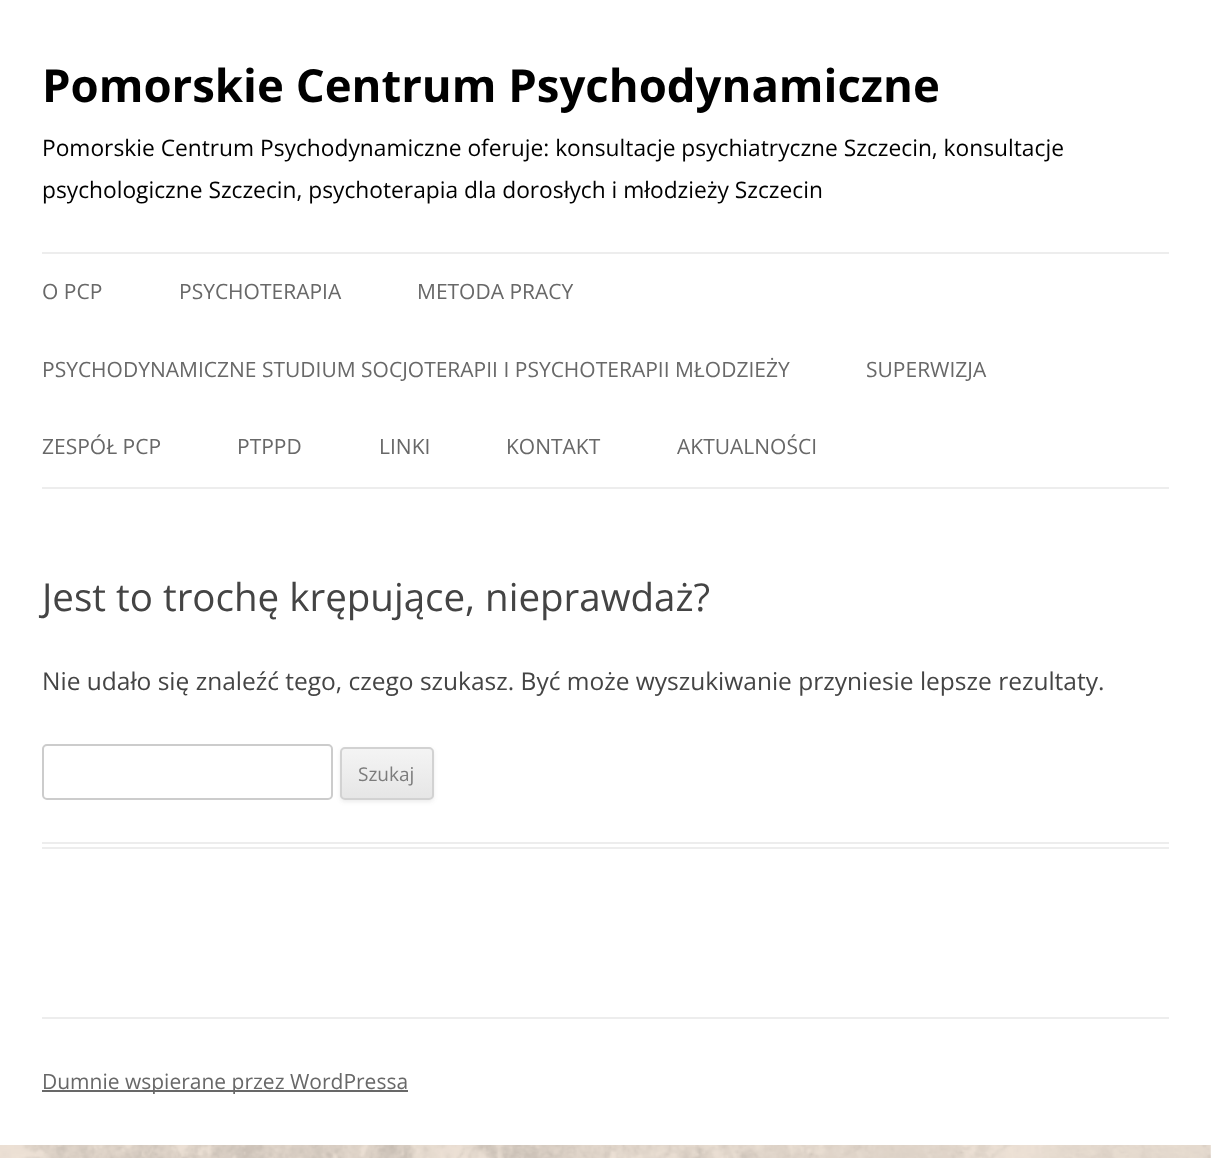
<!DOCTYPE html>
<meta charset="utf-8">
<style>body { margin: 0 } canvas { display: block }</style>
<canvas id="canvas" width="1211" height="1158"></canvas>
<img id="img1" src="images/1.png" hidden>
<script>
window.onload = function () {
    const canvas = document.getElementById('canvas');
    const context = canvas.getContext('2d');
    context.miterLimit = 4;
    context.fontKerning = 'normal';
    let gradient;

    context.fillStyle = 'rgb(255, 255, 255)';
    context.fillRect(0, 0, 1211, 1158);
    context.drawImage(document.getElementById('img1'), 0, 1145, 1211, 13);
    context.fillStyle = 'rgb(237, 237, 237)';
    context.fillRect(42, 252, 1127, 2);
    context.fillRect(42, 487, 1127, 2);
    context.fillRect(42, 842, 1127, 2);
    context.fillRect(42, 847, 1127, 2);
    context.beginPath();
    context.roundRect(43, 745, 289, 54, 4);
    context.strokeStyle = 'rgb(204, 204, 204)';
    context.lineWidth = 2;
    context.stroke();
    context.fillStyle = 'rgba(64, 64, 64, 0.1)';
    context.filter = 'blur(2px)';
    context.beginPath();
    context.roundRect(340, 749, 94, 53, 5);
    context.fill();
    context.filter = 'none';
    context.save();
    context.beginPath();
    context.roundRect(340, 747, 94, 53, 5);
    context.clip();
    gradient = context.createLinearGradient(387, 749, 387, 798);
    gradient.addColorStop(0, 'rgb(244, 244, 244)');
    gradient.addColorStop(1, 'rgb(230, 230, 230)');
    context.fillStyle = gradient;
    context.fillRect(340, 749, 94, 49);
    context.restore();
    context.beginPath();
    context.roundRect(341, 748, 92, 51, 4);
    context.strokeStyle = 'rgb(210, 210, 210)';
    context.stroke();
    context.fillStyle = 'rgb(237, 237, 237)';
    context.fillRect(42, 1017, 1127, 2);
    context.fillStyle = 'rgb(104, 104, 104)';
    context.fillRect(42, 1090, 366, 2);
    context.font = 'bold 45.5px Open Sans';
    context.fillStyle = 'rgb(0, 0, 0)';
    context.fillText('Pomorskie Centrum Psychodynamiczne', 42, 102);
    context.font = '22.75px Open Sans';
    context.fillText('Pomorskie Centrum Psychodynamiczne oferuje: konsultacje psychiatryczne Szczecin, konsultacje', 42, 156);
    context.fillText('psychologiczne Szczecin, psychoterapia dla dorosłych i młodzieży Szczecin', 42, 198);
    context.font = '21px Open Sans';
    context.fillStyle = 'rgb(104, 104, 104)';
    context.fillText('O PCP', 42, 299);
    context.fillText('PSYCHOTERAPIA', 179, 299);
    context.fillText('METODA PRACY', 417, 299);
    context.fillText('PSYCHODYNAMICZNE STUDIUM SOCJOTERAPII I PSYCHOTERAPII MŁODZIEŻY', 42, 377);
    context.fillText('SUPERWIZJA', 866, 377);
    context.fillText('ZESPÓŁ PCP', 42, 454);
    context.fillText('PTPPD', 237, 454);
    context.fillText('LINKI', 379, 454);
    context.fillText('KONTAKT', 506, 454);
    context.fillText('AKTUALNOŚCI', 677, 454);
    context.font = '38.5px Open Sans';
    context.fillStyle = 'rgb(68, 68, 68)';
    context.fillText('Jest to trochę krępujące, nieprawdaż?', 42, 611);
    context.font = '24.5px Open Sans';
    context.fillText('Nie udało się znaleźć tego, czego szukasz. Być może wyszukiwanie przyniesie lepsze rezultaty.', 42, 690);
    context.font = '19px Open Sans';
    context.fillStyle = 'rgb(124, 124, 124)';
    context.fillText('Szukaj', 358, 781);
    context.font = '21px Open Sans';
    context.fillStyle = 'rgb(104, 104, 104)';
    context.fillText('Dumnie wspierane przez WordPressa', 42, 1089);
};
</script>
